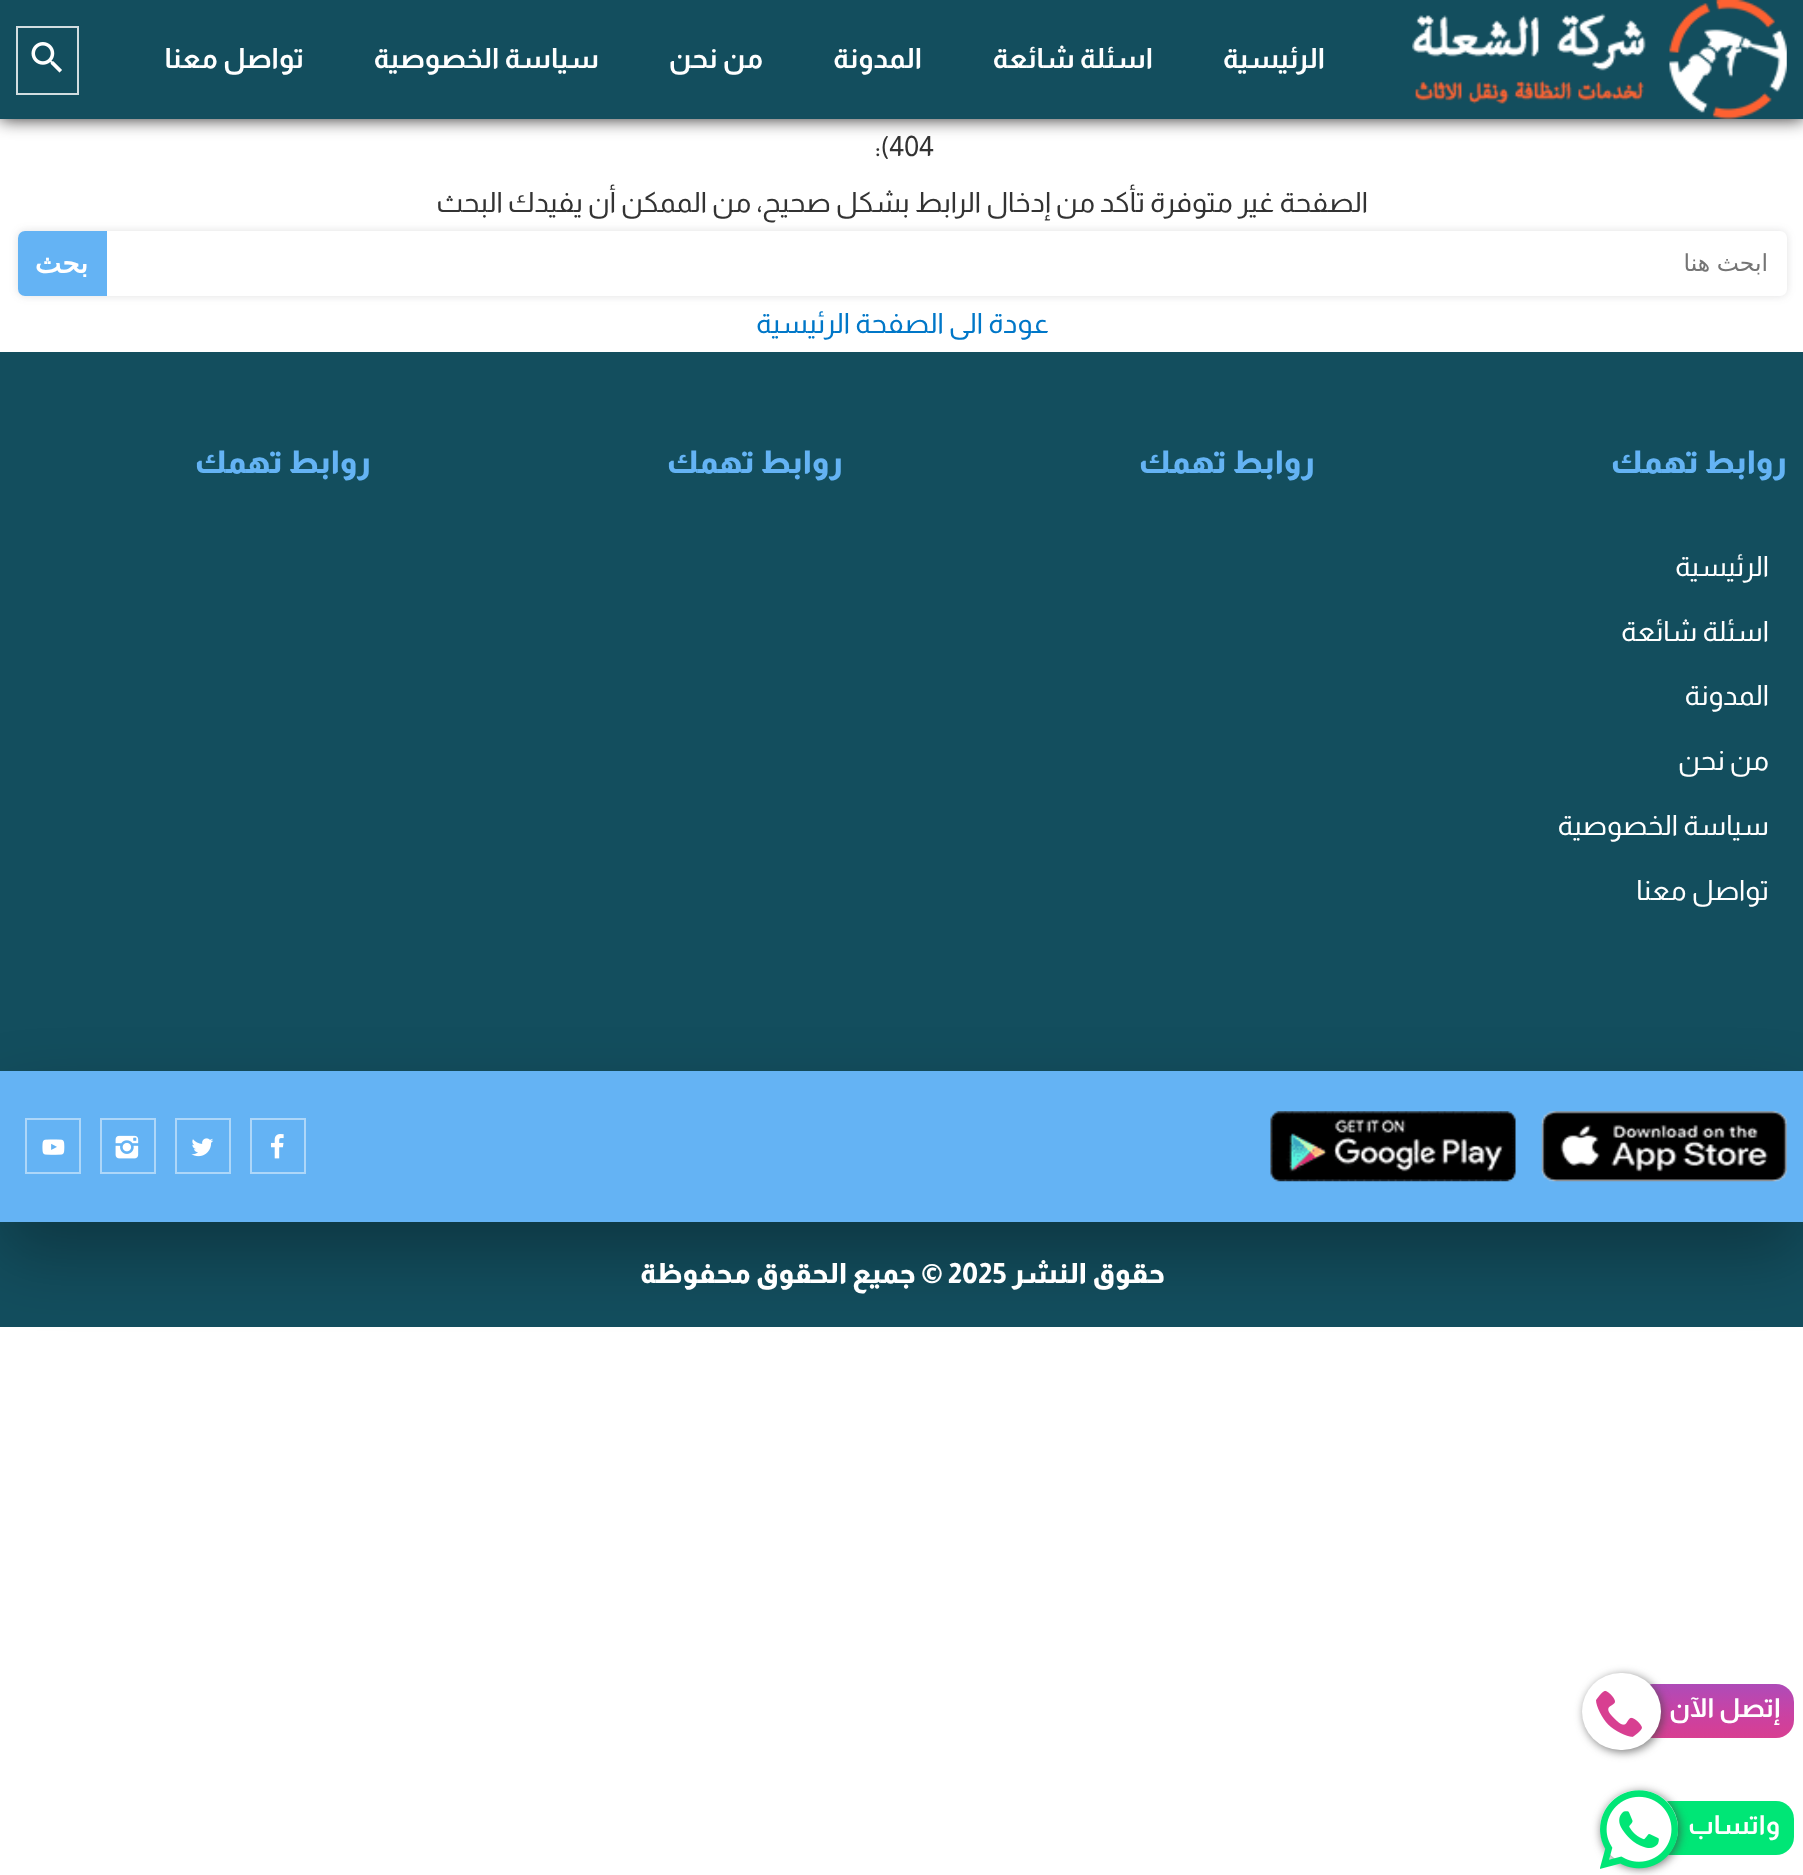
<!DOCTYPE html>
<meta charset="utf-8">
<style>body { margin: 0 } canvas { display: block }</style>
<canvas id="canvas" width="1803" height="1875"></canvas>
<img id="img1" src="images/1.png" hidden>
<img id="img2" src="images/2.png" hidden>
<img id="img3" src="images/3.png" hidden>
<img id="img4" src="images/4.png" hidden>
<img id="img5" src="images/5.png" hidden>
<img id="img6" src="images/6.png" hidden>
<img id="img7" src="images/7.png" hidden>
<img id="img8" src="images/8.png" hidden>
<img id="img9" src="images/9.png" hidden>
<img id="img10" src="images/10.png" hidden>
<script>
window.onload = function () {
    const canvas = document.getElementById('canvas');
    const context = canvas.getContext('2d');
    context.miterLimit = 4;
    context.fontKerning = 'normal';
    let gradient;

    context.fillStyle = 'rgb(255, 255, 255)';
    context.fillRect(0, 0, 1803, 1875);
    context.fillStyle = 'rgb(42, 39, 39)';
    context.filter = 'blur(9px)';
    context.beginPath();
    context.rect(0, 0, 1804, 119);
    context.fill();
    context.filter = 'none';
    context.fillStyle = 'rgb(19, 78, 94)';
    context.fillRect(0, 0, 1803, 119);
    context.drawImage(document.getElementById('img1'), 1412, 0, 375, 119);
    context.strokeStyle = 'rgb(210, 221, 224)';
    context.lineWidth = 2;
    context.strokeRect(17, 27, 61, 67);
    context.drawImage(document.getElementById('img2'), 31, 42, 31, 31);
    context.fillStyle = 'rgba(60, 64, 67, 0.16)';
    context.filter = 'blur(4.5px)';
    context.beginPath();
    context.roundRect(18, 231, 1769, 65, 7);
    context.fill();
    context.filter = 'none';
    context.fillStyle = 'rgb(255, 255, 255)';
    context.beginPath();
    context.roundRect(18, 231, 1769, 65, 7);
    context.fill();
    context.fillStyle = 'rgb(100, 179, 244)';
    context.beginPath();
    context.roundRect(18, 231, 89, 65, [7, 0, 0, 7]);
    context.fill();
    context.fillStyle = 'rgb(19, 78, 94)';
    context.fillRect(0, 352, 1803, 975);
    context.fillStyle = 'rgba(0, 0, 0, 0.29)';
    context.filter = 'blur(35px)';
    context.beginPath();
    context.rect(0, 1104, 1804, 151);
    context.fill();
    context.filter = 'none';
    context.fillStyle = 'rgb(100, 179, 244)';
    context.fillRect(0, 1071, 1803, 151);
    context.drawImage(document.getElementById('img3'), 1541, 1111, 246, 71);
    context.drawImage(document.getElementById('img4'), 1270, 1111, 246, 71);
    context.strokeStyle = 'rgb(173, 215, 249)';
    context.strokeRect(251, 1119, 54, 54);
    context.drawImage(document.getElementById('img5'), 270, 1134, 14, 25);
    context.strokeRect(176, 1119, 54, 54);
    context.drawImage(document.getElementById('img6'), 191, 1138, 23, 19);
    context.strokeRect(101, 1119, 54, 54);
    context.drawImage(document.getElementById('img7'), 115, 1135, 24, 24);
    context.strokeRect(26, 1119, 54, 54);
    context.drawImage(document.getElementById('img8'), 42, 1139, 23, 16);
    gradient = context.createLinearGradient(1714, 1738, 1714, 1684);
    gradient.addColorStop(0, 'rgb(216, 63, 145)');
    gradient.addColorStop(0.25, 'rgb(208, 64, 155)');
    gradient.addColorStop(0.5, 'rgb(199, 67, 165)');
    gradient.addColorStop(0.75, 'rgb(187, 71, 175)');
    gradient.addColorStop(1, 'rgb(174, 75, 184)');
    context.fillStyle = gradient;
    context.beginPath();
    context.roundRect(1635, 1684, 159, 54, 18);
    context.fill();
    context.fillStyle = 'rgba(68, 68, 68, 0.71)';
    context.filter = 'blur(5px)';
    context.beginPath();
    context.roundRect(1584, 1675, 79, 77, 38.5);
    context.fill();
    context.filter = 'none';
    context.fillStyle = 'rgb(255, 255, 255)';
    context.beginPath();
    context.roundRect(1582, 1673, 79, 77, 38.5);
    context.fill();
    context.drawImage(document.getElementById('img9'), 1596, 1690, 46, 47);
    context.fillStyle = 'rgb(0, 230, 118)';
    context.beginPath();
    context.roundRect(1652, 1801, 142, 54, 18);
    context.fill();
    context.fillStyle = 'rgba(68, 68, 68, 0.71)';
    context.filter = 'blur(5px)';
    context.beginPath();
    context.roundRect(1601, 1792, 79, 77, 38.5);
    context.fill();
    context.filter = 'none';
    context.fillStyle = 'rgb(255, 255, 255)';
    context.beginPath();
    context.roundRect(1600, 1790, 78, 77, 38.5);
    context.fill();
    context.drawImage(document.getElementById('img10'), 1600, 1790, 78, 79);
    context.direction = 'rtl';
    context.font = 'bold 28px Almarai';
    context.fillText('الرئيسية', 1325, 68);
    context.fillText('اسئلة شائعة', 1153, 68);
    context.fillText('المدونة', 922, 68);
    context.fillText('من نحن', 763, 68);
    context.fillText('سياسة الخصوصية', 599, 68);
    context.fillText('تواصل معنا', 304, 68);
    context.direction = 'ltr';
    context.font = '28px Almarai';
    context.fillStyle = 'rgb(51, 51, 51)';
    context.fillText(':(404', 875, 156);
    context.direction = 'rtl';
    context.fillText('الصفحة غير متوفرة تأكد من إدخال الرابط بشكل صحيح، من الممكن أن يفيدك البحث', 1368, 212);
    context.wordSpacing = '-1px';
    context.font = '23.5px DejaVu Sans';
    context.fillStyle = 'rgb(117, 117, 117)';
    context.fillText('ابحث هنا', 1768, 271);
    context.wordSpacing = '0px';
    context.font = 'bold 28px DejaVu Sans';
    context.fillStyle = 'rgb(255, 255, 255)';
    context.fillText('بحث', 88, 273);
    context.font = '28px Almarai';
    context.fillStyle = 'rgb(0, 119, 200)';
    context.fillText('عودة الى الصفحة الرئيسية', 1049, 333);
    context.font = '800 31.5px Almarai';
    context.fillStyle = 'rgb(100, 179, 244)';
    context.fillText('روابط تهمك', 1787, 473);
    context.font = '28px Almarai';
    context.fillStyle = 'rgb(255, 255, 255)';
    context.fillText('الرئيسية', 1769, 576);
    context.fillText('اسئلة شائعة', 1769, 641);
    context.fillText('المدونة', 1769, 705);
    context.fillText('من نحن', 1769, 770);
    context.fillText('سياسة الخصوصية', 1769, 835);
    context.fillText('تواصل معنا', 1769, 900);
    context.font = '800 31.5px Almarai';
    context.fillStyle = 'rgb(100, 179, 244)';
    context.fillText('روابط تهمك', 1315, 473);
    context.fillText('روابط تهمك', 843, 473);
    context.fillText('روابط تهمك', 371, 473);
    context.font = '800 28px Almarai';
    context.fillStyle = 'rgb(255, 255, 255)';
    context.fillText('حقوق النشر', 1165, 1283);
    context.direction = 'ltr';
    context.fillText('2025', 948, 1283);
    context.direction = 'rtl';
    context.fillText('© جميع الحقوق محفوظة', 943, 1283);
    context.font = 'bold 26.25px Almarai';
    context.fillText('إتصل الآن', 1780, 1717);
    context.fillText('واتساب', 1780, 1834);
};
</script>
